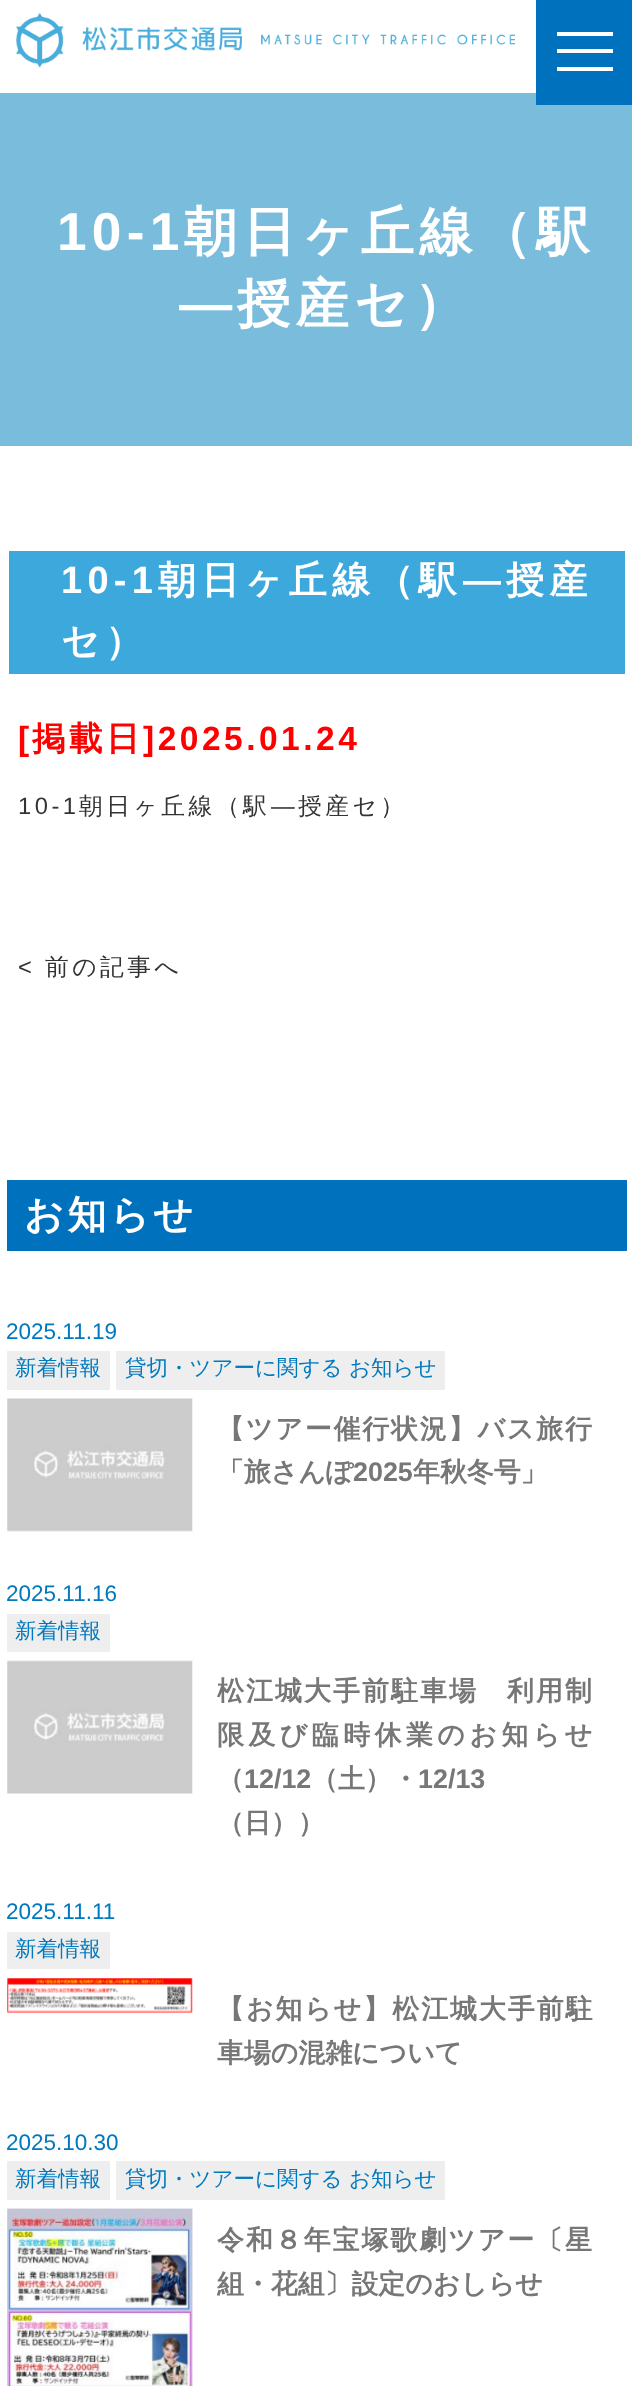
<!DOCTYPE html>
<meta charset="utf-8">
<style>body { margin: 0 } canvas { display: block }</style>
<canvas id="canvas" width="632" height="2386"></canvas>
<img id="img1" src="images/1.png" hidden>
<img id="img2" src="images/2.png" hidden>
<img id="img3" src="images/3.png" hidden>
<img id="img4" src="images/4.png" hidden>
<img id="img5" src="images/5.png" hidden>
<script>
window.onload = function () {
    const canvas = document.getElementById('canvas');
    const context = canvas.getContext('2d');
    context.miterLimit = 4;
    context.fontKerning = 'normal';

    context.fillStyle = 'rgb(255, 255, 255)';
    context.fillRect(0, 0, 632, 2386);
    context.drawImage(document.getElementById('img1'), 16, 13, 499, 55);
    context.fillStyle = 'rgb(121, 188, 220)';
    context.fillRect(0, 93, 632, 353);
    context.fillStyle = 'rgb(0, 113, 188)';
    context.fillRect(536, 0, 96, 105);
    context.fillStyle = 'rgb(255, 255, 255)';
    context.fillRect(557, 49, 56, 4);
    context.fillRect(557, 32, 56, 4);
    context.fillRect(557, 67, 56, 4);
    context.fillStyle = 'rgb(61, 168, 220)';
    context.fillRect(9, 551, 616, 123);
    context.fillStyle = 'rgb(0, 113, 188)';
    context.fillRect(7, 1180, 620, 71);
    context.fillStyle = 'rgb(238, 238, 238)';
    context.fillRect(7, 1351, 103, 39);
    context.fillRect(116, 1351, 329, 39);
    context.drawImage(document.getElementById('img2'), 7, 1398, 186, 134);
    context.fillRect(7, 1614, 103, 38);
    context.drawImage(document.getElementById('img3'), 7, 1660, 186, 134);
    context.fillRect(7, 1932, 103, 37);
    context.drawImage(document.getElementById('img4'), 7, 1978, 186, 35);
    context.fillRect(7, 2161, 103, 39);
    context.fillRect(116, 2161, 329, 39);
    context.drawImage(document.getElementById('img5'), 7, 2208, 186, 178);
    context.letterSpacing = '5.25px';
    context.font = 'bold 53.25px Liberation Sans';
    context.fillStyle = 'rgb(255, 255, 255)';
    context.fillText('10-1', 57, 250);
    context.font = 'bold 53.25px WenQuanYi Zen Hei';
    context.fillText('朝日ヶ丘線（駅', 184, 250);
    context.font = 'bold 53.25px Liberation Sans';
    context.fillText('―', 179, 322);
    context.font = 'bold 53.25px WenQuanYi Zen Hei';
    context.fillText('授産セ）', 237, 322);
    context.font = 'bold 38px Liberation Sans';
    context.fillText('10-1', 61, 593);
    context.font = 'bold 38px WenQuanYi Zen Hei';
    context.fillText('朝日ヶ丘線（駅', 158, 593);
    context.font = 'bold 38px Liberation Sans';
    context.fillText('―', 463, 593);
    context.font = 'bold 38px WenQuanYi Zen Hei';
    context.fillText('授産', 506, 593);
    context.fillText('セ）', 61, 654);
    context.letterSpacing = '3.5px';
    context.font = 'bold 33.5px Liberation Sans';
    context.fillStyle = 'rgb(255, 0, 0)';
    context.fillText('[', 18, 750);
    context.font = 'bold 33.5px WenQuanYi Zen Hei';
    context.fillText('掲載日', 32, 750);
    context.font = 'bold 33.5px Liberation Sans';
    context.fillText(']2025.01.24', 143, 750);
    context.font = '23.75px Liberation Sans';
    context.fillStyle = 'rgb(51, 51, 51)';
    context.fillText('10-1', 18, 814);
    context.font = '500 23.75px WenQuanYi Zen Hei';
    context.fillText('朝日ヶ丘線（駅', 79, 814);
    context.font = '23.75px Liberation Sans';
    context.fillText('―', 271, 814);
    context.font = '500 23.75px WenQuanYi Zen Hei';
    context.fillText('授産セ）', 298, 814);
    context.font = '23.75px Liberation Sans';
    context.fillText('<', 18, 975);
    context.font = '500 23.75px WenQuanYi Zen Hei';
    context.fillText('前の記事へ', 45, 975);
    context.font = 'bold 39px WenQuanYi Zen Hei';
    context.fillStyle = 'rgb(255, 255, 255)';
    context.fillText('お知らせ', 24, 1228);
    context.letterSpacing = '0px';
    context.font = '22.5px Liberation Sans';
    context.fillStyle = 'rgb(0, 121, 191)';
    context.fillText('2025.11.19', 6, 1339);
    context.font = '500 21.5px WenQuanYi Zen Hei';
    context.fillText('新着情報', 15, 1375);
    context.fillText('貸切・ツアーに関する お知らせ', 125, 1375);
    context.letterSpacing = '1.9px';
    context.font = 'bold 26.9px WenQuanYi Zen Hei';
    context.fillStyle = 'rgb(119, 119, 119)';
    context.fillText('【ツアー催行状況】バス旅行', 217, 1438);
    context.letterSpacing = '0px';
    context.fillText('「旅さんぽ', 217, 1481);
    context.font = 'bold 26.9px Liberation Sans';
    context.fillText('2025', 353, 1481);
    context.font = 'bold 26.9px WenQuanYi Zen Hei';
    context.fillText('年秋冬号」', 413, 1481);
    context.font = '22.5px Liberation Sans';
    context.fillStyle = 'rgb(0, 121, 191)';
    context.fillText('2025.11.16', 6, 1601);
    context.font = '500 21.5px WenQuanYi Zen Hei';
    context.fillText('新着情報', 15, 1638);
    context.letterSpacing = '2.1px';
    context.font = 'bold 26.9px WenQuanYi Zen Hei';
    context.fillStyle = 'rgb(119, 119, 119)';
    context.fillText('松江城大手前駐車場　利用制', 217, 1700);
    context.letterSpacing = '4.5px';
    context.fillText('限及び臨時休業のお知らせ', 217, 1744);
    context.letterSpacing = '0px';
    context.fillText('（', 217, 1788);
    context.font = 'bold 26.9px Liberation Sans';
    context.fillText('12/12', 244, 1788);
    context.font = 'bold 26.9px WenQuanYi Zen Hei';
    context.fillText('（土）・', 311, 1788);
    context.font = 'bold 26.9px Liberation Sans';
    context.fillText('12/13', 418, 1788);
    context.font = 'bold 26.9px WenQuanYi Zen Hei';
    context.fillText('（日））', 217, 1832);
    context.font = '22.5px Liberation Sans';
    context.fillStyle = 'rgb(0, 121, 191)';
    context.fillText('2025.11.11', 6, 1919);
    context.font = '500 21.5px WenQuanYi Zen Hei';
    context.fillText('新着情報', 15, 1956);
    context.letterSpacing = '2px';
    context.font = 'bold 26.9px WenQuanYi Zen Hei';
    context.fillStyle = 'rgb(119, 119, 119)';
    context.fillText('【お知らせ】松江城大手前駐', 217, 2018);
    context.letterSpacing = '0px';
    context.fillText('車場の混雑について', 217, 2062);
    context.font = '22.5px Liberation Sans';
    context.fillStyle = 'rgb(0, 121, 191)';
    context.fillText('2025.10.30', 6, 2150);
    context.font = '500 21.5px WenQuanYi Zen Hei';
    context.fillText('新着情報', 15, 2186);
    context.fillText('貸切・ツアーに関する お知らせ', 125, 2186);
    context.letterSpacing = '2px';
    context.font = 'bold 26.9px WenQuanYi Zen Hei';
    context.fillStyle = 'rgb(119, 119, 119)';
    context.fillText('令和８年宝塚歌劇ツアー〔星', 217, 2249);
    context.letterSpacing = '0px';
    context.fillText('組・花組〕設定のおしらせ', 217, 2293);
};
</script>
